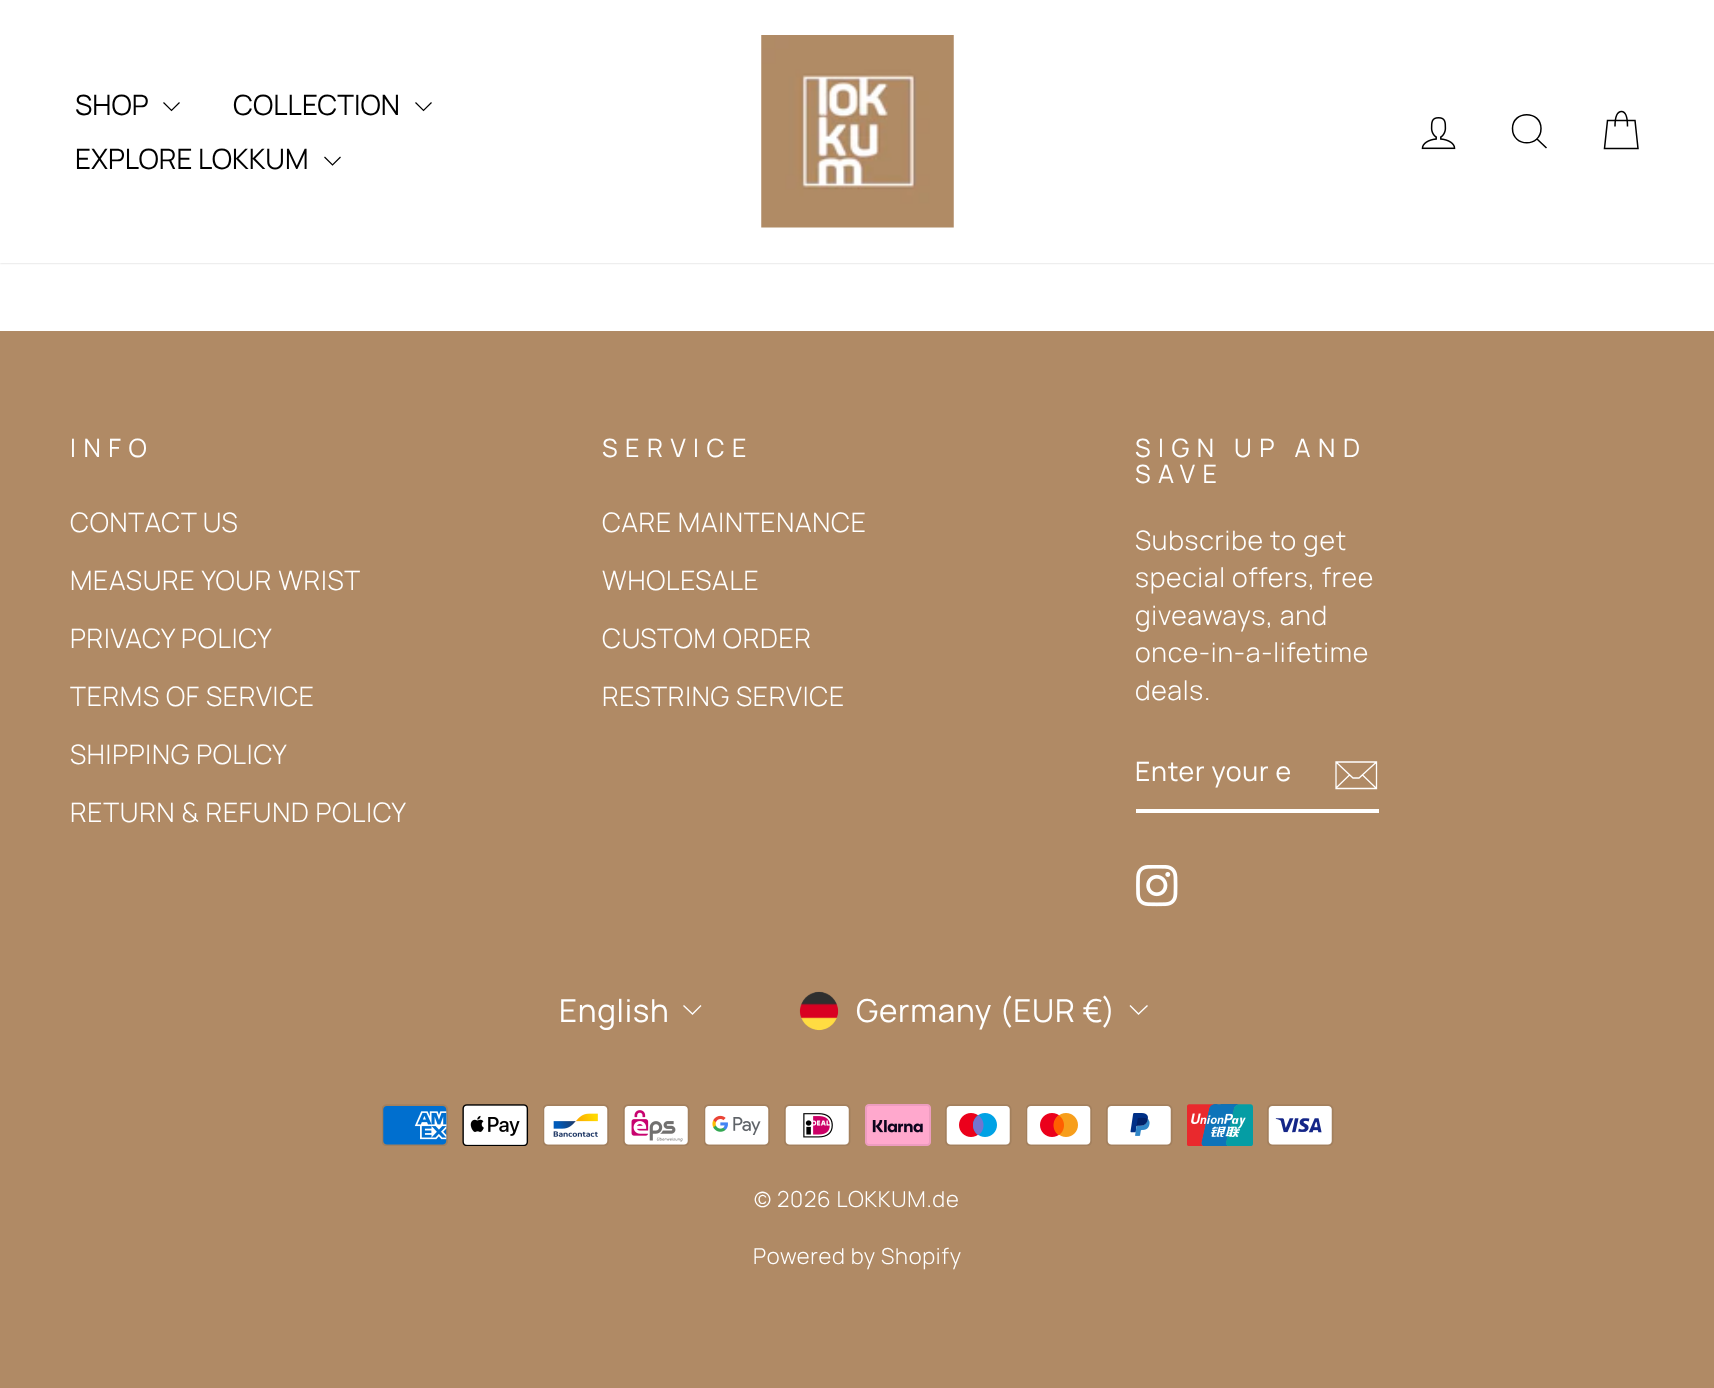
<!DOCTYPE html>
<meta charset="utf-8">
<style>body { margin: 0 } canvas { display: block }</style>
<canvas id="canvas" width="1714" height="1388"></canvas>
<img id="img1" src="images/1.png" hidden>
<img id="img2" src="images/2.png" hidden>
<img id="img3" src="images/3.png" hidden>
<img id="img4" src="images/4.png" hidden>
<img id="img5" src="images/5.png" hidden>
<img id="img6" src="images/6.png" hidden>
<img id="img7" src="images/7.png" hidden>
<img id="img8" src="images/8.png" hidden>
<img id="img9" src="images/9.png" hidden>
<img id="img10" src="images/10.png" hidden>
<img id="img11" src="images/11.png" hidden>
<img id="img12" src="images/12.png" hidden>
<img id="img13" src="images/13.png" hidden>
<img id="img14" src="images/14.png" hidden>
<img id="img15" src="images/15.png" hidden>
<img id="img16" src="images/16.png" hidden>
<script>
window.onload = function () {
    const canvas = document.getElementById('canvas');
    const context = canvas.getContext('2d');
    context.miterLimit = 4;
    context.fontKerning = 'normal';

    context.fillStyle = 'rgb(255, 255, 255)';
    context.fillRect(0, 0, 1714, 1388);
    context.fillStyle = 'rgba(0, 0, 0, 0.2)';
    context.filter = 'blur(1px)';
    context.beginPath();
    context.rect(0, 0, 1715, 263);
    context.fill();
    context.filter = 'none';
    context.fillStyle = 'rgb(255, 255, 255)';
    context.fillRect(0, 0, 1714, 263);
    context.beginPath();
    context.moveTo(163.5, 102.5);
    context.lineTo(171.5, 110.5);
    context.lineTo(179.5, 102.5);
    context.strokeStyle = 'rgb(0, 0, 0)';
    context.lineWidth = 1.2;
    context.stroke();
    context.beginPath();
    context.moveTo(415.5, 102.5);
    context.lineTo(423.5, 110.5);
    context.lineTo(431.5, 102.5);
    context.stroke();
    context.beginPath();
    context.moveTo(324.5, 157);
    context.lineTo(332.5, 165);
    context.lineTo(340.5, 157);
    context.stroke();
    context.drawImage(document.getElementById('img1'), 761, 35, 193, 193);
    context.drawImage(document.getElementById('img2'), 1421, 117, 35, 33);
    context.beginPath();
    context.moveTo(1541, 128.5);
    context.bezierCurveTo(1541, 147.5, 1512.5, 147.5, 1512.5, 128.5);
    context.bezierCurveTo(1512.5, 110, 1541, 110, 1541, 128.5);
    context.closePath();
    context.moveTo(1546.5, 148);
    context.lineTo(1537, 139);
    context.lineWidth = 1.5;
    context.stroke();
    context.beginPath();
    context.moveTo(1615, 126.5);
    context.bezierCurveTo(1615, 114.5, 1618, 111.5, 1621.5, 111.5);
    context.bezierCurveTo(1624.5, 111.5, 1627.5, 114.5, 1627.5, 126.5);
    context.moveTo(1607.5, 120.5);
    context.lineTo(1635, 120.5);
    context.lineTo(1638, 148.5);
    context.lineTo(1604.5, 148.5);
    context.closePath();
    context.stroke();
    context.fillStyle = 'rgb(176, 138, 101)';
    context.fillRect(0, 331, 1714, 1057);
    context.fillStyle = 'rgb(255, 255, 255)';
    context.fillRect(1136, 809, 243, 4);
    context.beginPath();
    context.moveTo(1376.5, 788.5);
    context.lineTo(1336, 788.5);
    context.lineTo(1336, 762);
    context.lineTo(1376.5, 762);
    context.closePath();
    context.moveTo(1336, 762);
    context.lineTo(1353, 778);
    context.lineTo(1359, 778);
    context.lineTo(1376.5, 762);
    context.moveTo(1349.5, 775);
    context.lineTo(1336.5, 787.5);
    context.moveTo(1376, 788);
    context.lineTo(1362.5, 775);
    context.strokeStyle = 'rgb(255, 255, 255)';
    context.lineWidth = 1.3;
    context.stroke();
    context.drawImage(document.getElementById('img3'), 1136, 865, 42, 42);
    context.beginPath();
    context.moveTo(683.5, 1005.5);
    context.lineTo(692.5, 1014);
    context.lineTo(701, 1005.5);
    context.lineWidth = 1.4;
    context.stroke();
    context.drawImage(document.getElementById('img4'), 799, 991, 40, 40);
    context.beginPath();
    context.moveTo(1130, 1005.5);
    context.lineTo(1138.5, 1014);
    context.lineTo(1147.5, 1005.5);
    context.stroke();
    context.drawImage(document.getElementById('img5'), 382, 1104, 66, 42);
    context.drawImage(document.getElementById('img6'), 462, 1104, 67, 42);
    context.drawImage(document.getElementById('img7'), 543, 1104, 66, 42);
    context.drawImage(document.getElementById('img8'), 623, 1104, 67, 42);
    context.drawImage(document.getElementById('img9'), 704, 1104, 66, 42);
    context.drawImage(document.getElementById('img10'), 784, 1104, 67, 42);
    context.drawImage(document.getElementById('img11'), 865, 1104, 66, 42);
    context.drawImage(document.getElementById('img12'), 945, 1104, 67, 42);
    context.drawImage(document.getElementById('img13'), 1026, 1104, 66, 42);
    context.drawImage(document.getElementById('img14'), 1106, 1104, 67, 42);
    context.drawImage(document.getElementById('img15'), 1187, 1104, 66, 42);
    context.drawImage(document.getElementById('img16'), 1267, 1104, 67, 42);
    context.font = '28px Manrope';
    context.fillStyle = 'rgb(0, 0, 0)';
    context.fillText('SHOP', 75, 115);
    context.fillText('COLLECTION', 233, 115);
    context.fillText('EXPLORE LOKKUM', 75, 169);
    context.letterSpacing = '7.5px';
    context.font = '25.25px Manrope';
    context.fillStyle = 'rgb(255, 255, 255)';
    context.fillText('INFO', 70, 457);
    context.letterSpacing = '0.75px';
    context.font = '300 26.75px Manrope';
    context.fillText('CONTACT US', 70, 532);
    context.fillText('MEASURE YOUR WRIST', 70, 590);
    context.fillText('PRIVACY POLICY', 70, 648);
    context.fillText('TERMS OF SERVICE', 70, 706);
    context.fillText('SHIPPING POLICY', 70, 764);
    context.fillText('RETURN & REFUND POLICY', 70, 822);
    context.letterSpacing = '7.5px';
    context.font = '25.25px Manrope';
    context.fillText('SERVICE', 602, 457);
    context.letterSpacing = '0.75px';
    context.font = '300 26.75px Manrope';
    context.fillText('CARE MAINTENANCE', 602, 532);
    context.fillText('WHOLESALE', 602, 590);
    context.fillText('CUSTOM ORDER', 602, 648);
    context.fillText('RESTRING SERVICE', 602, 706);
    context.letterSpacing = '7.5px';
    context.font = '25.25px Manrope';
    context.fillText('SIGN UP AND', 1135, 457);
    context.fillText('SAVE', 1135, 483);
    context.letterSpacing = '0.75px';
    context.font = '300 26.75px Manrope';
    context.fillText('Subscribe to get', 1135, 550);
    context.fillText('special offers, free', 1135, 587);
    context.fillText('giveaways, and', 1135, 625);
    context.fillText('once-in-a-lifetime', 1135, 662);
    context.fillText('deals.', 1135, 700);
    context.font = '26.75px Manrope';
    context.fillText('Enter your e', 1135, 781);
    context.font = '31.5px Manrope';
    context.fillText('English', 559, 1022);
    context.fillText('Germany (EUR €)', 856, 1022);
    context.font = '300 22px Manrope';
    context.fillText('© 2026 LOKKUM.de', 754, 1207);
    context.fillText('Powered by Shopify', 753, 1264);
};
</script>
